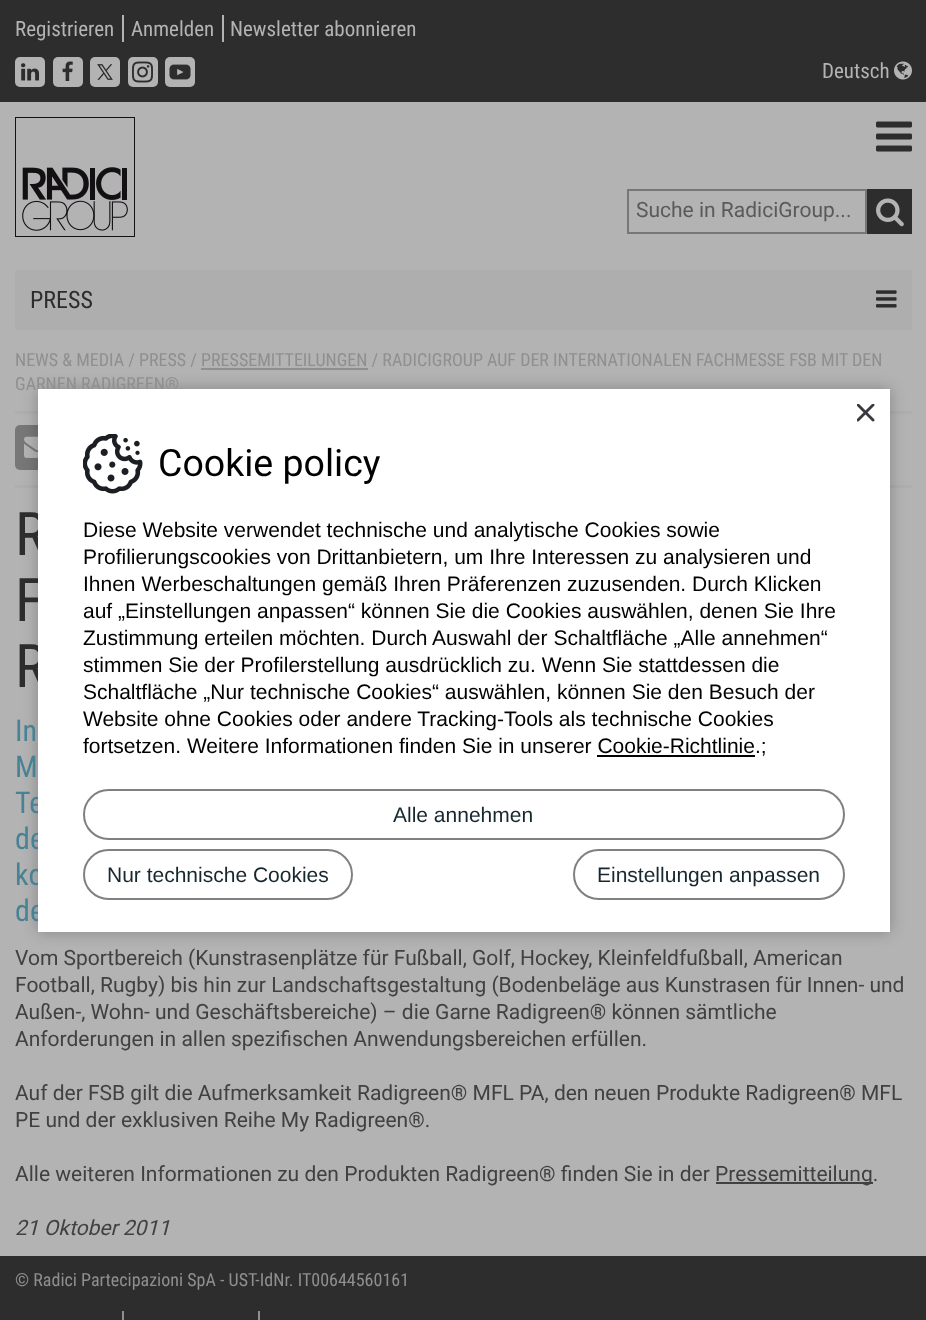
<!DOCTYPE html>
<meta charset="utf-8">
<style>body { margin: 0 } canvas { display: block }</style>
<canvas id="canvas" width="926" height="1320"></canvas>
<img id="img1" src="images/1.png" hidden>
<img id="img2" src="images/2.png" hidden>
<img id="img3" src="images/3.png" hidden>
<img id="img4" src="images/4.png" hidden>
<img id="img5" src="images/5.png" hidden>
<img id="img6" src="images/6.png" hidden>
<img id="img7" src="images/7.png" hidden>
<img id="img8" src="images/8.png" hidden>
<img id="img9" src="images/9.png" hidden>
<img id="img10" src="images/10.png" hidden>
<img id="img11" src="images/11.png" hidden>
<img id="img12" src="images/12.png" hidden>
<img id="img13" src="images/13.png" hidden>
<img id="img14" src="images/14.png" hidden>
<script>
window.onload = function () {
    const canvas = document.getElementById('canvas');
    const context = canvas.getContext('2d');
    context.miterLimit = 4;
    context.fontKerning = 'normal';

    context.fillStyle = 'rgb(45, 45, 45)';
    context.fillRect(0, 0, 926, 1320);
    context.fillStyle = 'rgb(179, 179, 179)';
    context.fillRect(122, 15, 2, 27);
    context.fillRect(222, 15, 2, 27);
    context.beginPath();
    context.roundRect(15, 57, 30, 30, 5);
    context.fill();
    context.drawImage(document.getElementById('img1'), 21, 63, 18, 18);
    context.beginPath();
    context.roundRect(53, 57, 30, 30, 5);
    context.fill();
    context.drawImage(document.getElementById('img2'), 62, 61, 11, 20);
    context.beginPath();
    context.roundRect(90, 57, 30, 30, 5);
    context.fill();
    context.drawImage(document.getElementById('img3'), 97, 64, 16, 16);
    context.beginPath();
    context.roundRect(128, 57, 30, 30, 5);
    context.fill();
    context.drawImage(document.getElementById('img4'), 132, 61, 21, 22);
    context.beginPath();
    context.roundRect(165, 57, 30, 30, 5);
    context.fill();
    context.drawImage(document.getElementById('img5'), 169, 64, 22, 16);
    context.drawImage(document.getElementById('img6'), 894, 61, 18, 19);
    context.fillRect(0, 102, 926, 1154);
    context.drawImage(document.getElementById('img7'), 15, 117, 120, 120);
    context.drawImage(document.getElementById('img8'), 22, 167, 106, 64);
    context.drawImage(document.getElementById('img9'), 876, 121, 36, 31);
    context.strokeStyle = 'rgb(119, 119, 119)';
    context.lineWidth = 2;
    context.strokeRect(628, 190, 238, 43);
    context.fillStyle = 'rgb(45, 45, 45)';
    context.fillRect(867, 189, 45, 45);
    context.drawImage(document.getElementById('img10'), 876, 198, 28, 29);
    context.fillStyle = 'rgb(174, 174, 174)';
    context.fillRect(15, 270, 897, 60);
    context.drawImage(document.getElementById('img11'), 876, 290, 21, 18);
    context.fillRect(15, 485, 897, 3);
    context.fillStyle = 'rgb(143, 143, 143)';
    context.fillRect(201, 368, 167, 2);
    context.fillStyle = 'rgb(174, 174, 174)';
    context.fillRect(15, 411, 897, 3);
    context.fillStyle = 'rgb(119, 119, 119)';
    context.beginPath();
    context.roundRect(15, 425, 45, 45, 5);
    context.fill();
    context.drawImage(document.getElementById('img12'), 24, 436, 14, 22);
    context.fillStyle = 'rgb(65, 65, 65)';
    context.fillRect(716, 1182, 157, 2);
    context.fillStyle = 'rgba(0, 0, 0, 0.25)';
    context.filter = 'blur(7.5px)';
    context.beginPath();
    context.rect(38, 389, 852, 543);
    context.fill();
    context.filter = 'none';
    context.fillStyle = 'rgb(143, 143, 143)';
    context.fillRect(122, 1311, 2, 9);
    context.fillRect(258, 1311, 2, 9);
    context.font = '21px Roboto Condensed';
    context.fillStyle = 'rgb(179, 179, 179)';
    context.fillText('Registrieren', 15, 36);
    context.fillText('Anmelden', 131, 36);
    context.fillText('Newsletter abonnieren', 230, 36);
    context.fillText('Deutsch', 822, 78);
    context.font = '21px Roboto';
    context.fillStyle = 'rgb(90, 90, 90)';
    context.fillText('Suche in RadiciGroup...', 636, 217);
    context.font = '24px Roboto Condensed';
    context.fillStyle = 'rgb(45, 45, 45)';
    context.fillText('PRESS', 30, 308);
    context.font = '18px Roboto Condensed';
    context.fillStyle = 'rgb(143, 143, 143)';
    context.fillText('NEWS & MEDIA / PRESS / PRESSEMITTEILUNGEN / RADICIGROUP AUF DER INTERNATIONALEN FACHMESSE FSB MIT DEN', 15, 366);
    context.fillText('GARNEN RADIGREEN®.', 15, 390);
    context.font = '60px Roboto Condensed';
    context.fillStyle = 'rgb(45, 45, 45)';
    context.fillText('R', 15, 555);
    context.fillText('F', 15, 621);
    context.fillText('R', 15, 687);
    context.font = '30px Roboto Condensed';
    context.fillStyle = 'rgb(71, 130, 149)';
    context.fillText('In', 15, 741);
    context.fillText('M', 15, 777);
    context.fillText('Te', 15, 813);
    context.fillText('de', 15, 849);
    context.fillText('ko', 15, 885);
    context.fillText('de', 15, 921);
    context.font = '21px Roboto';
    context.fillStyle = 'rgb(65, 65, 65)';
    context.fillText('Vom Sportbereich (Kunstrasenplätze für Fußball, Golf, Hockey, Kleinfeldfußball, American', 15, 965);
    context.fillText('Football, Rugby) bis hin zur Landschaftsgestaltung (Bodenbeläge aus Kunstrasen für Innen- und', 15, 992);
    context.fillText('Außen-, Wohn- und Geschäftsbereiche) – die Garne Radigreen® können sämtliche', 15, 1019);
    context.fillText('Anforderungen in allen spezifischen Anwendungsbereichen erfüllen.', 15, 1046);
    context.fillText('Auf der FSB gilt die Aufmerksamkeit Radigreen® MFL PA, den neuen Produkte Radigreen® MFL', 15, 1100);
    context.fillText('PE und der exklusiven Reihe My Radigreen®.', 15, 1127);
    context.fillText('Alle weiteren Informationen zu den Produkten Radigreen® finden Sie in der', 15, 1181);
    context.fillText('Pressemitteilung.', 715, 1181);
    context.font = 'italic 21px Roboto';
    context.fillText('21 Oktober 2011', 15, 1235);
    context.fillStyle = 'rgb(255, 255, 255)';
    context.fillRect(38, 389, 852, 543);
    context.drawImage(document.getElementById('img13'), 857, 404, 18, 18);
    context.drawImage(document.getElementById('img14'), 83, 434, 60, 60);
    context.font = '37.5px Roboto';
    context.fillStyle = 'rgb(0, 0, 0)';
    context.fillText('Cookie policy', 158, 476);
    context.font = '21px Liberation Sans';
    context.fillText('Diese Website verwendet technische und analytische Cookies sowie', 83, 537);
    context.fillText('Profilierungscookies von Drittanbietern, um Ihre Interessen zu analysieren und', 83, 564);
    context.fillText('Ihnen Werbeschaltungen gemäß Ihren Präferenzen zuzusenden. Durch Klicken', 83, 591);
    context.fillText('auf „Einstellungen anpassen“ können Sie die Cookies auswählen, denen Sie Ihre', 83, 618);
    context.fillText('Zustimmung erteilen möchten. Durch Auswahl der Schaltfläche „Alle annehmen“', 83, 645);
    context.fillText('stimmen Sie der Profilerstellung ausdrücklich zu. Wenn Sie stattdessen die', 83, 672);
    context.fillText('Schaltfläche „Nur technische Cookies“ auswählen, können Sie den Besuch der', 83, 699);
    context.fillText('Website ohne Cookies oder andere Tracking-Tools als technische Cookies', 83, 726);
    context.fillText('fortsetzen. Weitere Informationen finden Sie in unserer Cookie-Richtlinie.;', 83, 753);
    context.fillRect(597, 755, 158, 2);
    context.beginPath();
    context.roundRect(84, 790, 760, 49, 24.5);
    context.strokeStyle = 'rgb(128, 128, 128)';
    context.stroke();
    context.fillStyle = 'rgb(23, 39, 47)';
    context.fillText('Alle annehmen', 393, 822);
    context.beginPath();
    context.roundRect(84, 850, 268, 49, 24.5);
    context.stroke();
    context.fillText('Nur technische Cookies', 107, 882);
    context.beginPath();
    context.roundRect(574, 850, 270, 49, 24.5);
    context.stroke();
    context.fillText('Einstellungen anpassen', 597, 882);
    context.font = '18px Roboto Condensed';
    context.fillStyle = 'rgb(143, 143, 143)';
    context.fillText('© Radici Partecipazioni SpA - UST-IdNr. IT00644560161', 15, 1286);
};
</script>
